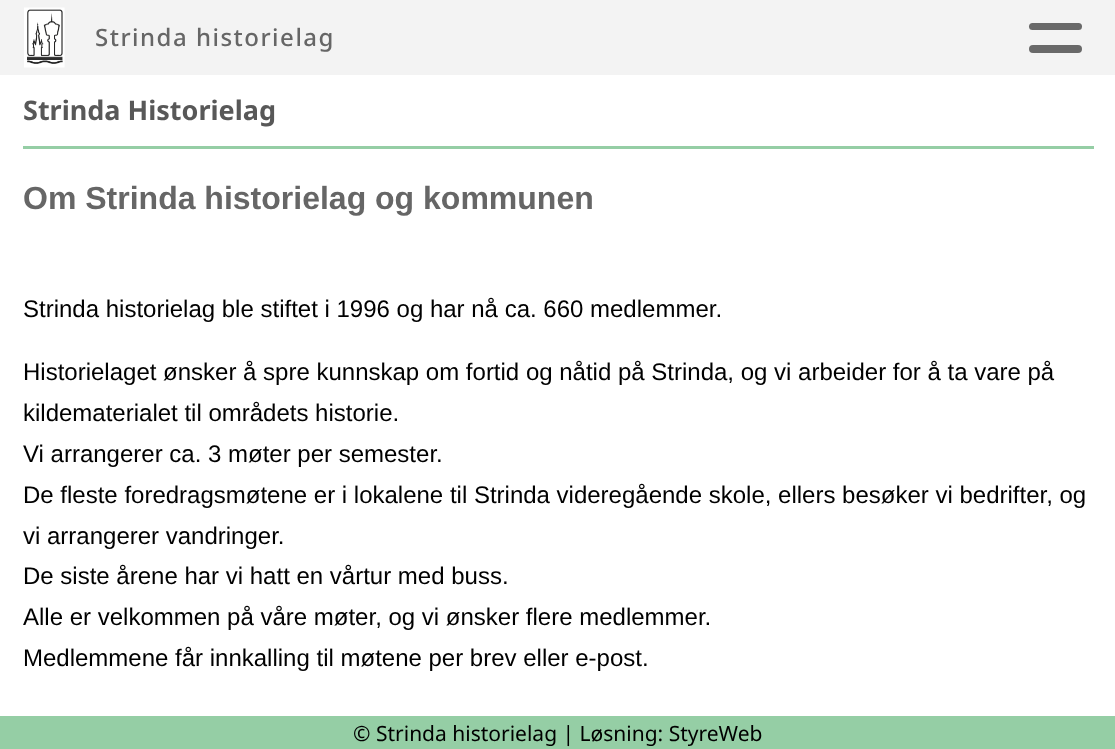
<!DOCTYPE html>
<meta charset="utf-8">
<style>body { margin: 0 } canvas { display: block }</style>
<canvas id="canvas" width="1115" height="749"></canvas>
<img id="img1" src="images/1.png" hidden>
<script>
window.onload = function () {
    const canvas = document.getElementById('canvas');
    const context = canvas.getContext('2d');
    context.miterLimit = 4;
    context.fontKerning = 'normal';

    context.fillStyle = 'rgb(255, 255, 255)';
    context.fillRect(0, 0, 1115, 749);
    context.fillStyle = 'rgb(243, 243, 243)';
    context.fillRect(0, 0, 1115, 75);
    context.drawImage(document.getElementById('img1'), 24, 7, 41, 61);
    context.fillStyle = 'rgb(105, 105, 105)';
    context.beginPath();
    context.roundRect(1029, 23, 53, 7, 3.5);
    context.fill();
    context.beginPath();
    context.roundRect(1029, 45, 53, 8, 4);
    context.fill();
    context.fillStyle = 'rgb(149, 206, 165)';
    context.fillRect(23, 146, 1071, 3);
    context.fillRect(0, 716, 1115, 33);
    context.letterSpacing = '1.5px';
    context.font = '500 24px Noto Sans';
    context.fillStyle = 'rgb(102, 102, 102)';
    context.fillText('Strinda historielag', 95, 46);
    context.letterSpacing = '0px';
    context.font = 'bold 27px Noto Sans';
    context.fillStyle = 'rgb(88, 88, 88)';
    context.fillText('Strinda Historielag', 23, 120);
    context.font = 'bold 32px Liberation Sans';
    context.fillStyle = 'rgb(102, 102, 102)';
    context.fillText('Om Strinda historielag og kommunen', 23, 209);
    context.font = '24px Liberation Sans';
    context.fillStyle = 'rgb(0, 0, 0)';
    context.fillText('Strinda historielag ble stiftet i 1996 og har nå ca. 660 medlemmer.', 23, 317);
    context.fillText('Historielaget ønsker å spre kunnskap om fortid og nåtid på Strinda, og vi arbeider for å ta vare på', 23, 380);
    context.fillText('kildematerialet til områdets historie.', 23, 421);
    context.fillText('Vi arrangerer ca. 3 møter per semester.', 23, 462);
    context.fillText('De fleste foredragsmøtene er i lokalene til Strinda videregående skole, ellers besøker vi bedrifter, og', 23, 503);
    context.fillText('vi arrangerer vandringer.', 23, 544);
    context.fillText('De siste årene har vi hatt en vårtur med buss.', 23, 584);
    context.fillText('Alle er velkommen på våre møter, og vi ønsker flere medlemmer.', 23, 625);
    context.fillText('Medlemmene får innkalling til møtene per brev eller e-post.', 23, 666);
    context.font = '21px Noto Sans';
    context.fillText('© Strinda historielag | Løsning: StyreWeb', 353, 741);
};
</script>
